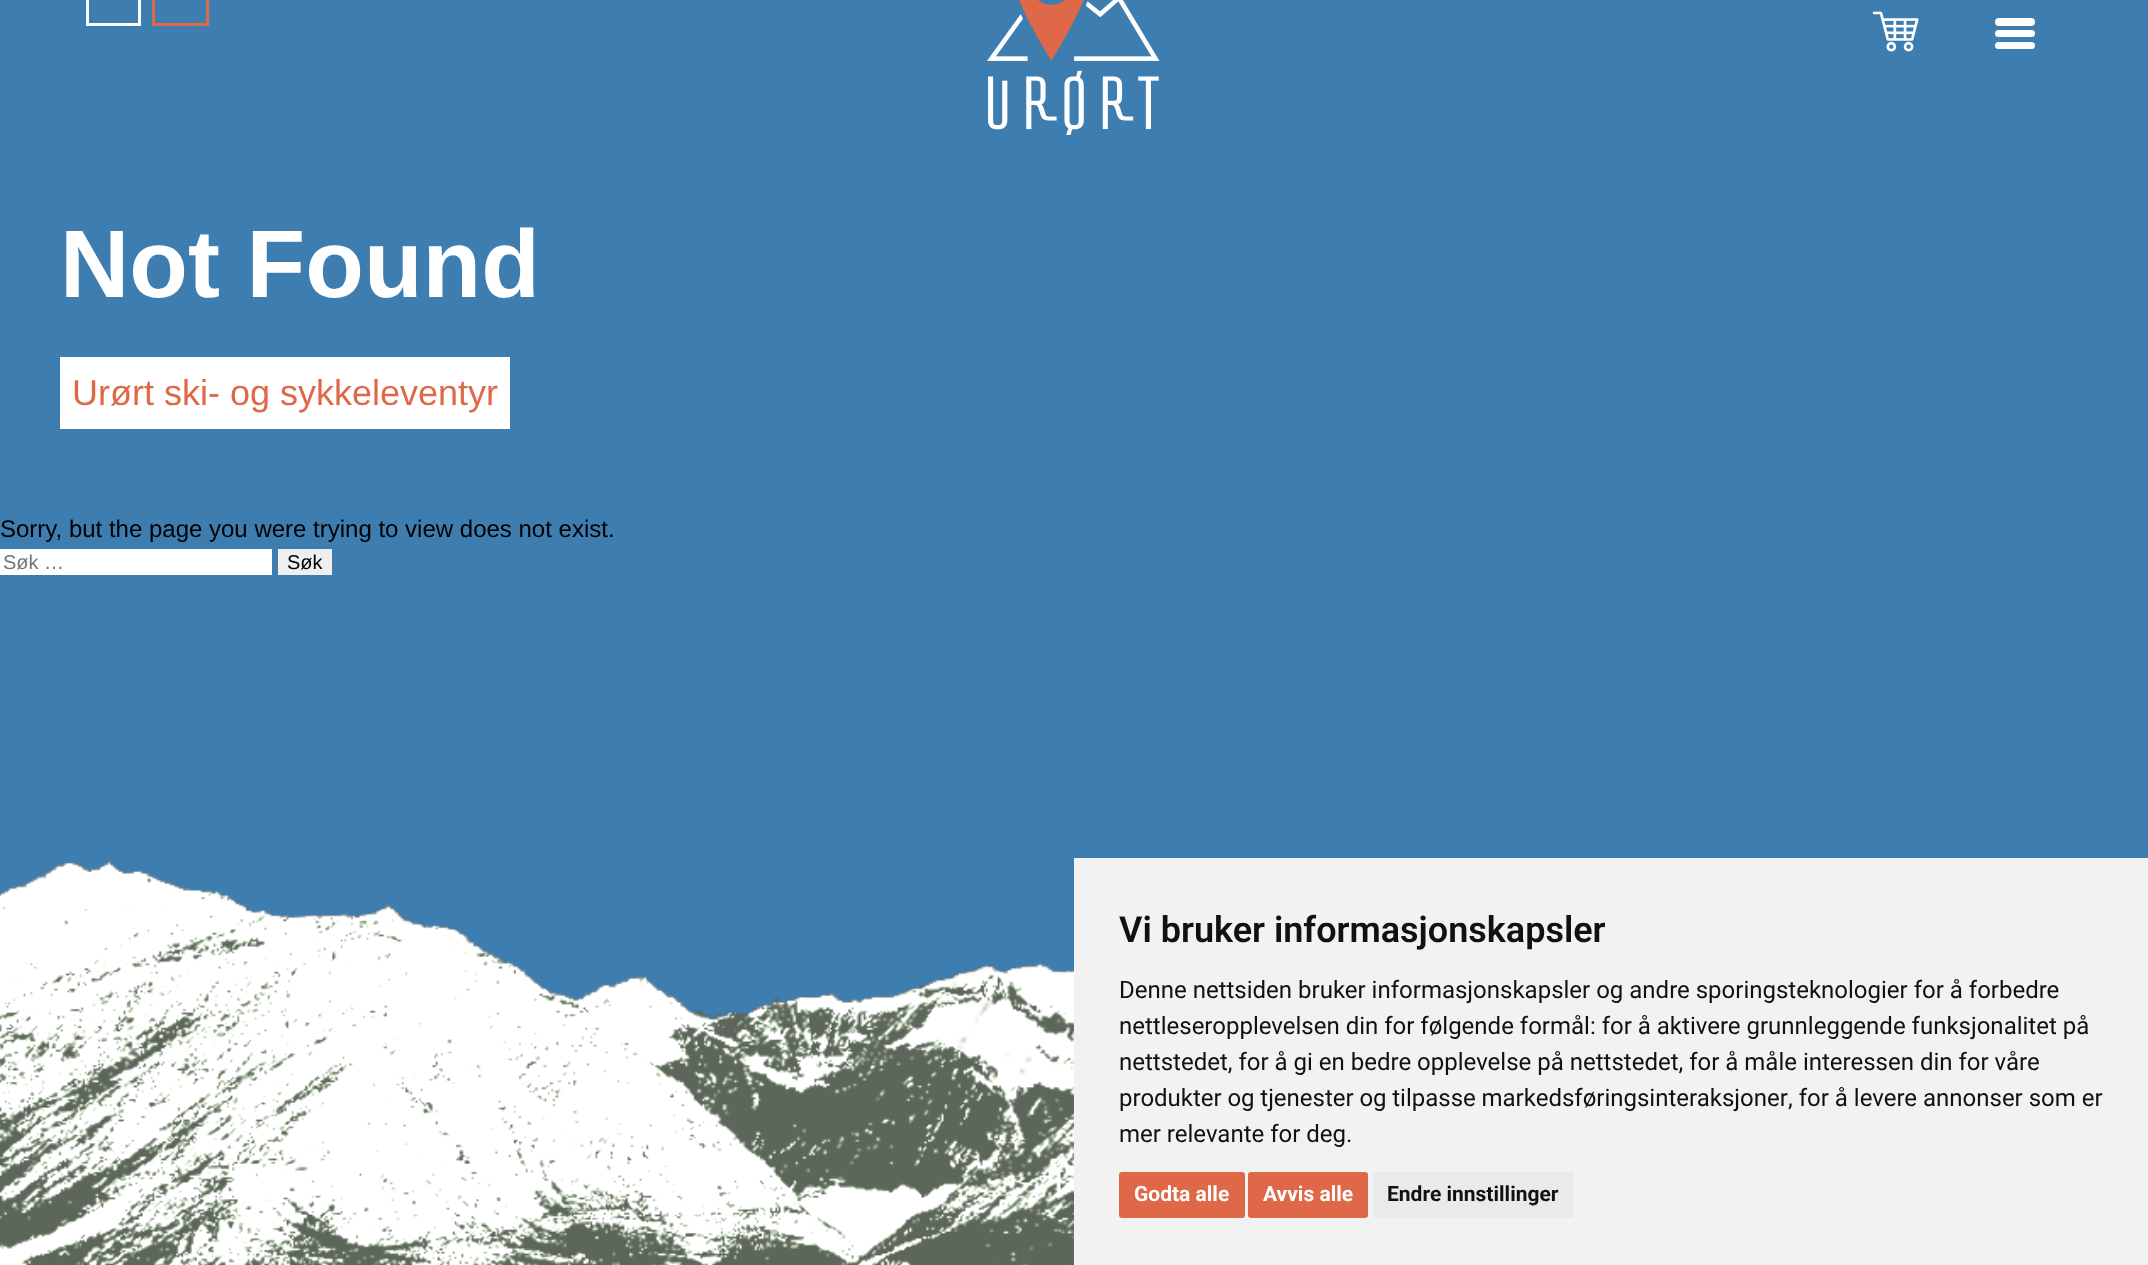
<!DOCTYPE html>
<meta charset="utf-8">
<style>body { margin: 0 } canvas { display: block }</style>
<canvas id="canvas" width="2148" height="1265"></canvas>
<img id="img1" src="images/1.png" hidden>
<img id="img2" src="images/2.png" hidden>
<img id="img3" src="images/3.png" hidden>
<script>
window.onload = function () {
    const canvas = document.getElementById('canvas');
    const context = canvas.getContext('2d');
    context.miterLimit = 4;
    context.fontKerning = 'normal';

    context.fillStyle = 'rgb(62, 125, 176)';
    context.fillRect(0, 0, 2148, 1265);
    context.strokeStyle = 'rgb(255, 255, 255)';
    context.lineWidth = 3;
    context.strokeRect(87.5, -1.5, 52, 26);
    context.strokeStyle = 'rgb(223, 104, 72)';
    context.strokeRect(153.5, -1.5, 54, 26);
    context.drawImage(document.getElementById('img1'), 987, 0, 173, 135);
    context.drawImage(document.getElementById('img2'), 1872, 11, 47, 41);
    context.fillStyle = 'rgb(255, 255, 255)';
    context.beginPath();
    context.roundRect(1995, 18, 40, 8, 4);
    context.fill();
    context.beginPath();
    context.roundRect(1995, 30, 40, 7, 3.5);
    context.fill();
    context.beginPath();
    context.roundRect(1995, 42, 40, 7, 3.5);
    context.fill();
    context.fillRect(60, 357, 450, 72);
    context.fillRect(0, 549, 272, 26);
    context.fillStyle = 'rgb(239, 239, 239)';
    context.fillRect(278, 549, 54, 26);
    context.drawImage(document.getElementById('img3'), 0, 861, 1074, 404);
    context.fillStyle = 'rgb(242, 242, 242)';
    context.fillRect(1074, 858, 1074, 407);
    context.fillStyle = 'rgb(223, 104, 72)';
    context.beginPath();
    context.roundRect(1119, 1172, 126, 46, 3);
    context.fill();
    context.beginPath();
    context.roundRect(1248, 1172, 120, 46, 3);
    context.fill();
    context.fillStyle = 'rgb(234, 234, 234)';
    context.beginPath();
    context.roundRect(1373, 1172, 201, 46, 3);
    context.fill();
    context.font = 'bold 96px Liberation Sans';
    context.fillStyle = 'rgb(255, 255, 255)';
    context.fillText('Not Found', 60, 297);
    context.font = '36px Liberation Sans';
    context.fillStyle = 'rgb(223, 104, 72)';
    context.fillText('Urørt ski- og sykkeleventyr', 72, 405);
    context.font = '24px Liberation Sans';
    context.fillStyle = 'rgb(0, 0, 0)';
    context.fillText('Sorry, but the page you were trying to view does not exist.', 0, 537);
    context.font = '20px Liberation Sans';
    context.fillStyle = 'rgb(117, 117, 117)';
    context.fillText('Søk …', 3, 569);
    context.fillStyle = 'rgb(0, 0, 0)';
    context.fillText('Søk', 287, 569);
    context.font = '600 36px Roboto';
    context.fillStyle = 'rgb(17, 17, 17)';
    context.fillText('Vi bruker informasjonskapsler', 1119, 942);
    context.font = '24px Roboto';
    context.fillText('Denne nettsiden bruker informasjonskapsler og andre sporingsteknologier for å forbedre', 1119, 998);
    context.fillText('nettleseropplevelsen din for følgende formål: for å aktivere grunnleggende funksjonalitet på', 1119, 1034);
    context.fillText('nettstedet, for å gi en bedre opplevelse på nettstedet, for å måle interessen din for våre', 1119, 1070);
    context.wordSpacing = '-0.25px';
    context.fillText('produkter og tjenester og tilpasse markedsføringsinteraksjoner', 1119, 1106);
    context.wordSpacing = '0px';
    context.fillText(', for å levere annonser som er', 1788, 1106);
    context.fillText('mer relevante for deg.', 1119, 1142);
    context.font = 'bold 21px Roboto';
    context.fillStyle = 'rgb(255, 255, 255)';
    context.fillText('Godta alle', 1134, 1201);
    context.fillText('Avvis alle', 1263, 1201);
    context.fillStyle = 'rgb(17, 17, 17)';
    context.fillText('Endre innstillinger', 1387, 1201);
};
</script>
